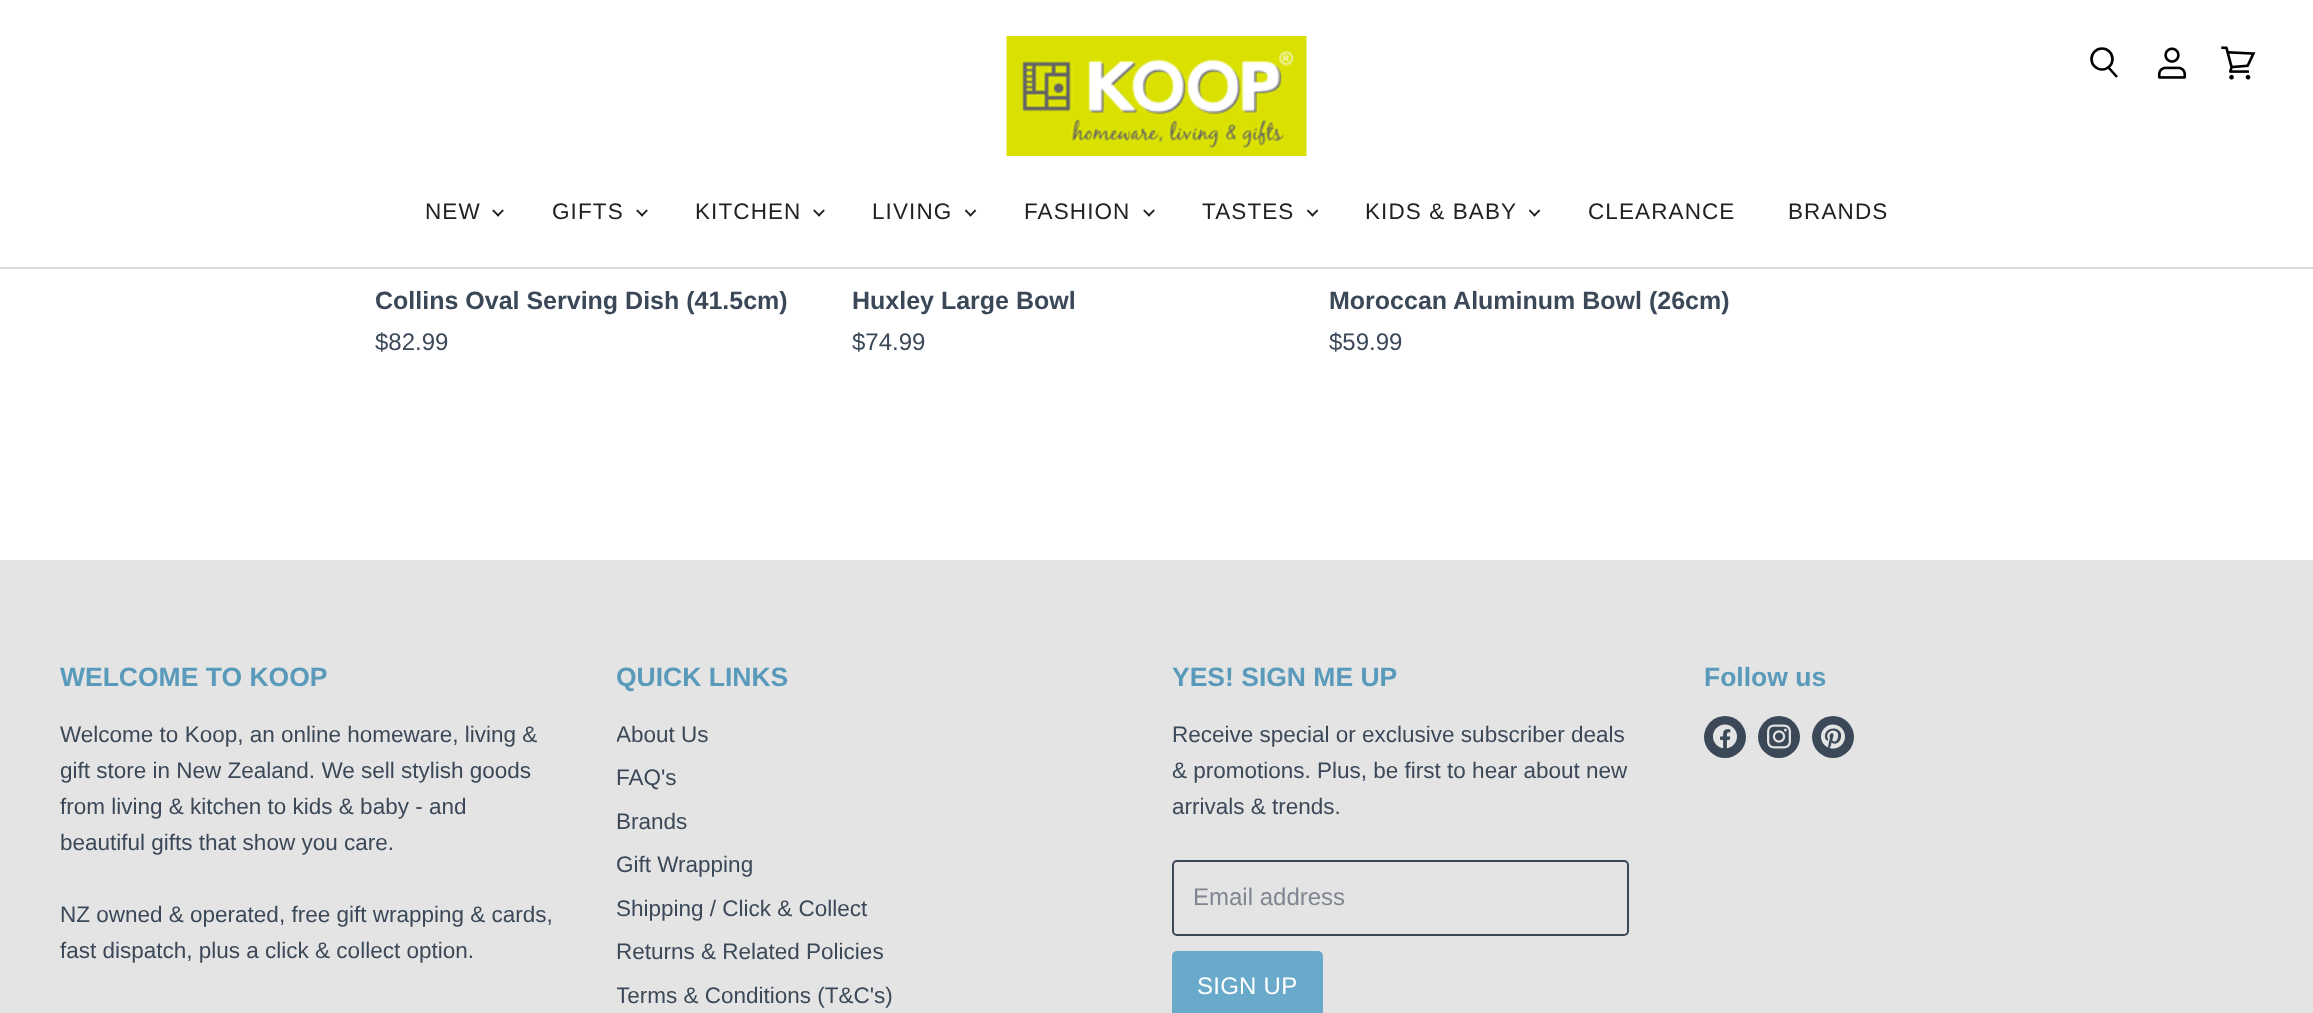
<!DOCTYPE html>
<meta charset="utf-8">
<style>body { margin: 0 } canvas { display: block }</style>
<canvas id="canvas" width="2313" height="1013"></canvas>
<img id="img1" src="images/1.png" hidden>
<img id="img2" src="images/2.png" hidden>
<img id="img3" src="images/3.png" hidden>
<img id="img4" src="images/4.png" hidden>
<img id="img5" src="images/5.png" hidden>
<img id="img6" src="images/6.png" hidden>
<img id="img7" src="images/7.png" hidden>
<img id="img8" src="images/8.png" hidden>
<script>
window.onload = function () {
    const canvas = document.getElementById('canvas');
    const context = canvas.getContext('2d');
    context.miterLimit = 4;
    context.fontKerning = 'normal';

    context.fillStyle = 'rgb(255, 255, 255)';
    context.fillRect(0, 0, 2313, 1013);
    context.fillStyle = 'rgb(215, 215, 215)';
    context.fillRect(0, 267, 2313, 2);
    context.drawImage(document.getElementById('img1'), 1006, 36, 301, 120);
    context.beginPath();
    context.moveTo(2117, 77);
    context.lineTo(2108.5, 67.5);
    context.strokeStyle = 'rgb(0, 0, 0)';
    context.lineWidth = 2.6;
    context.stroke();
    context.beginPath();
    context.arc(2102, 59, 10.5, 0, 2 * Math.PI);
    context.stroke();
    context.drawImage(document.getElementById('img2'), 2157, 47, 30, 32);
    context.drawImage(document.getElementById('img3'), 2221, 46, 35, 34);
    context.drawImage(document.getElementById('img4'), 492, 209, 12, 8);
    context.drawImage(document.getElementById('img4'), 636, 209, 12, 8);
    context.drawImage(document.getElementById('img4'), 813, 209, 12, 8);
    context.drawImage(document.getElementById('img5'), 965, 209, 12, 8);
    context.drawImage(document.getElementById('img4'), 1143, 209, 12, 8);
    context.drawImage(document.getElementById('img5'), 1307, 209, 12, 8);
    context.drawImage(document.getElementById('img5'), 1529, 209, 12, 8);
    context.fillStyle = 'rgb(228, 228, 228)';
    context.fillRect(0, 560, 2313, 453);
    context.beginPath();
    context.roundRect(1173, 861, 455, 74, 4);
    context.strokeStyle = 'rgb(59, 72, 88)';
    context.lineWidth = 2;
    context.stroke();
    context.fillStyle = 'rgb(105, 169, 202)';
    context.beginPath();
    context.roundRect(1173, 952, 149, 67, 4);
    context.fill();
    context.strokeStyle = 'rgb(105, 169, 202)';
    context.stroke();
    context.fillStyle = 'rgb(59, 72, 88)';
    context.beginPath();
    context.arc(1725, 737, 21, 0, 2 * Math.PI);
    context.fill();
    context.drawImage(document.getElementById('img6'), 1713, 724, 24, 25);
    context.beginPath();
    context.arc(1779, 737, 21, 0, 2 * Math.PI);
    context.fill();
    context.drawImage(document.getElementById('img7'), 1767, 724, 24, 25);
    context.beginPath();
    context.arc(1833, 737, 21, 0, 2 * Math.PI);
    context.fill();
    context.drawImage(document.getElementById('img8'), 1821, 724, 24, 25);
    context.letterSpacing = '1.1px';
    context.font = '22.5px Liberation Sans';
    context.fillStyle = 'rgb(33, 33, 33)';
    context.fillText('NEW', 425, 219);
    context.fillText('GIFTS', 552, 219);
    context.fillText('KITCHEN', 695, 219);
    context.fillText('LIVING', 872, 219);
    context.fillText('FASHION', 1024, 219);
    context.fillText('TASTES', 1202, 219);
    context.fillText('KIDS & BABY', 1365, 219);
    context.fillText('CLEARANCE', 1588, 219);
    context.fillText('BRANDS', 1788, 219);
    context.letterSpacing = '0px';
    context.font = 'bold 25px Liberation Sans';
    context.fillStyle = 'rgb(59, 72, 88)';
    context.fillText('Collins Oval Serving Dish (41.5cm)', 375, 309);
    context.font = '24px Liberation Sans';
    context.fillText('$82.99', 375, 350);
    context.font = 'bold 25px Liberation Sans';
    context.fillText('Huxley Large Bowl', 852, 309);
    context.font = '24px Liberation Sans';
    context.fillText('$74.99', 852, 350);
    context.font = 'bold 25px Liberation Sans';
    context.fillText('Moroccan Aluminum Bowl (26cm)', 1329, 309);
    context.font = '24px Liberation Sans';
    context.fillText('$59.99', 1329, 350);
    context.font = 'bold 26.5px Liberation Sans';
    context.fillStyle = 'rgb(89, 154, 187)';
    context.fillText('WELCOME TO KOOP', 60, 686);
    context.font = '22.5px Liberation Sans';
    context.fillStyle = 'rgb(59, 72, 88)';
    context.fillText('Welcome to Koop, an online homeware, living &', 60, 742);
    context.fillText('gift store in New Zealand. We sell stylish goods', 60, 778);
    context.fillText('from living & kitchen to kids & baby - and', 60, 814);
    context.fillText('beautiful gifts that show you care.', 60, 850);
    context.fillText('NZ owned & operated, free gift wrapping & cards,', 60, 922);
    context.fillText('fast dispatch, plus a click & collect option.', 60, 958);
    context.font = 'bold 26.5px Liberation Sans';
    context.fillStyle = 'rgb(89, 154, 187)';
    context.fillText('QUICK LINKS', 616, 686);
    context.save();
    context.beginPath();
    context.rect(617, 716, 495, 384);
    context.clip();
    context.font = '22.5px Liberation Sans';
    context.fillStyle = 'rgb(59, 72, 88)';
    context.fillText('About Us', 616, 742);
    context.restore();
    context.font = '22.5px Liberation Sans';
    context.fillStyle = 'rgb(59, 72, 88)';
    context.fillText('FAQ\'s', 616, 785);
    context.fillText('Brands', 616, 829);
    context.fillText('Gift Wrapping', 616, 872);
    context.fillText('Shipping / Click & Collect', 616, 916);
    context.fillText('Returns & Related Policies', 616, 959);
    context.save();
    context.beginPath();
    context.rect(617, 716, 495, 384);
    context.clip();
    context.fillText('Terms & Conditions (T&C\'s)', 616, 1003);
    context.restore();
    context.font = 'bold 26.5px Liberation Sans';
    context.fillStyle = 'rgb(89, 154, 187)';
    context.fillText('YES! SIGN ME UP', 1172, 686);
    context.font = '22.5px Liberation Sans';
    context.fillStyle = 'rgb(59, 72, 88)';
    context.fillText('Receive special or exclusive subscriber deals', 1172, 742);
    context.fillText('& promotions. Plus, be first to hear about new', 1172, 778);
    context.fillText('arrivals & trends.', 1172, 814);
    context.font = '24px Liberation Sans';
    context.fillStyle = 'rgb(127, 134, 144)';
    context.fillText('Email address', 1193, 905);
    context.letterSpacing = '0.25px';
    context.fillStyle = 'rgb(255, 255, 255)';
    context.fillText('SIGN UP', 1197, 994);
    context.letterSpacing = '0px';
    context.font = 'bold 26.5px Liberation Sans';
    context.fillStyle = 'rgb(89, 154, 187)';
    context.fillText('Follow us', 1704, 686);
};
</script>
